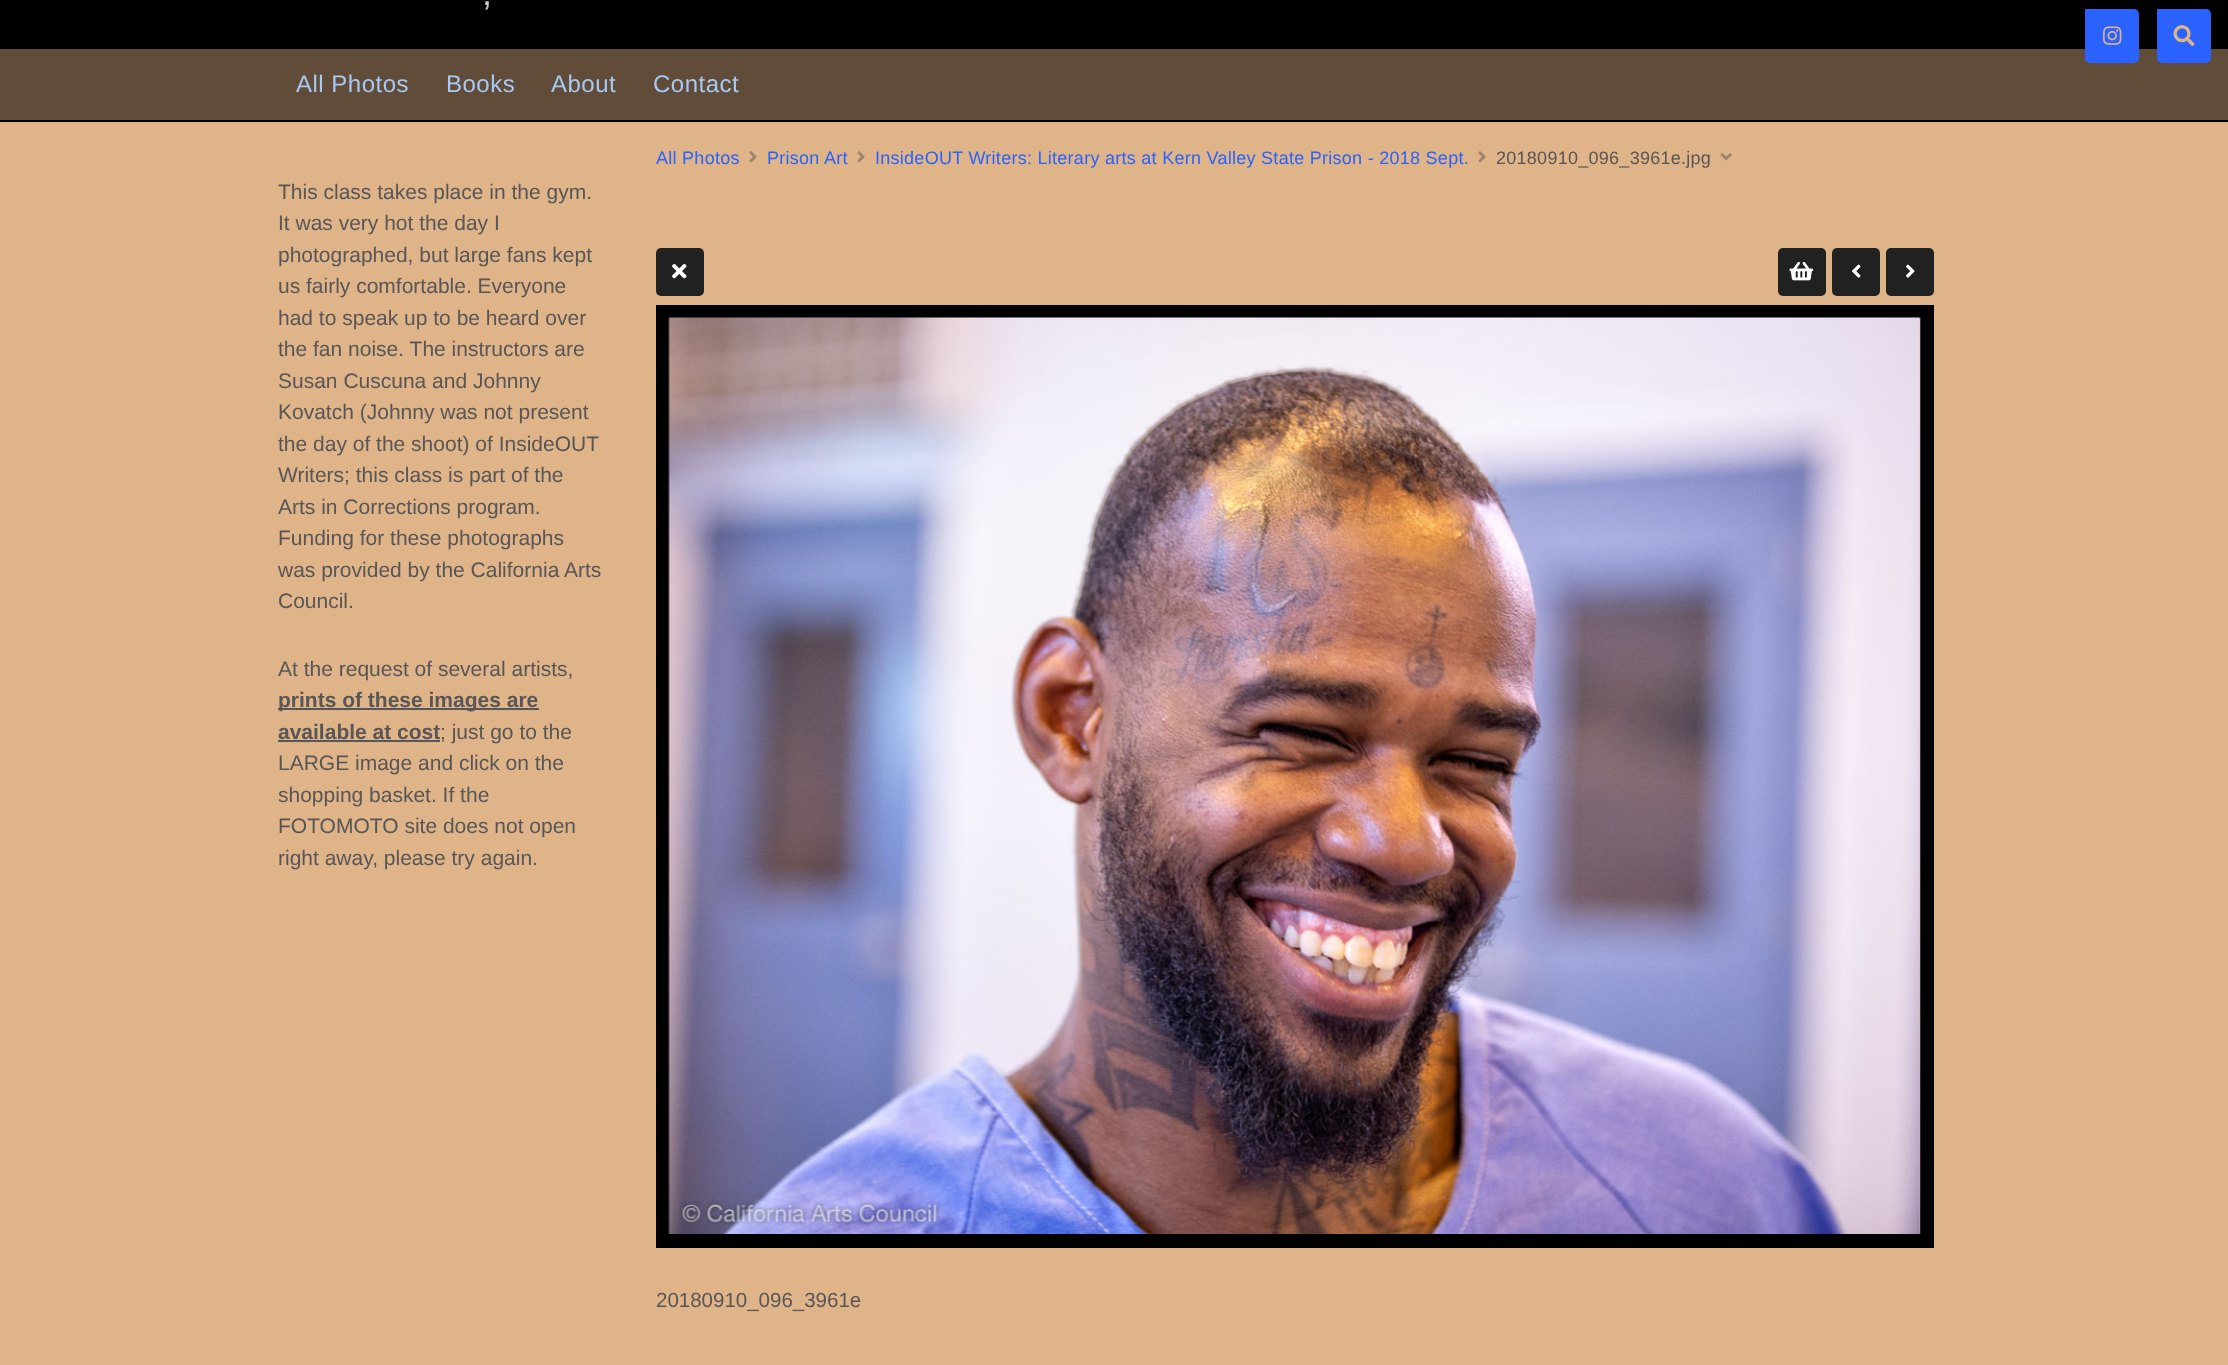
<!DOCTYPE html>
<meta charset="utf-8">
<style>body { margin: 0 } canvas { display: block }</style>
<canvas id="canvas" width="2228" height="1365"></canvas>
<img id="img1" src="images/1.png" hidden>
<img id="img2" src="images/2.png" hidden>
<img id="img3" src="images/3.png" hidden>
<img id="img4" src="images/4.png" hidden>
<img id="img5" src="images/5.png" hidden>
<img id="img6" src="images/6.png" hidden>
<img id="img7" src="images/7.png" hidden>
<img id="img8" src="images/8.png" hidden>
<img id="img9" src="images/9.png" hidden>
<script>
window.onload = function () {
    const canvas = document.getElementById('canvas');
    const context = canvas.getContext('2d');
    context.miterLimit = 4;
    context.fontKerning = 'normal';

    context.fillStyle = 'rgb(223, 180, 137)';
    context.fillRect(0, 0, 2228, 1365);
    context.fillStyle = 'rgb(0, 0, 0)';
    context.fillRect(0, 0, 2228, 49);
    context.fillStyle = 'rgb(96, 76, 57)';
    context.fillRect(0, 49, 2228, 71);
    context.fillStyle = 'rgb(41, 98, 255)';
    context.beginPath();
    context.roundRect(2085, 9, 54, 54, [0, 5, 5, 5]);
    context.fill();
    context.drawImage(document.getElementById('img1'), 2103, 26, 19, 19);
    context.beginPath();
    context.roundRect(2157, 9, 54, 54, [0, 5, 5, 5]);
    context.fill();
    context.drawImage(document.getElementById('img2'), 2173, 25, 22, 22);
    context.fillStyle = 'rgb(0, 0, 0)';
    context.fillRect(0, 120, 2228, 2);
    context.fillStyle = 'rgb(88, 86, 86)';
    context.fillRect(278, 708, 261, 2);
    context.fillRect(278, 740, 162, 2);
    context.drawImage(document.getElementById('img3'), 749, 151, 8, 12);
    context.drawImage(document.getElementById('img3'), 857, 151, 8, 12);
    context.drawImage(document.getElementById('img3'), 1478, 151, 8, 12);
    context.drawImage(document.getElementById('img4'), 1720, 153, 12, 8);
    context.fillStyle = 'rgb(33, 33, 33)';
    context.beginPath();
    context.roundRect(656, 248, 48, 48, 5);
    context.fill();
    context.drawImage(document.getElementById('img5'), 672, 263, 15, 16);
    context.beginPath();
    context.roundRect(1778, 248, 48, 48, 5);
    context.fill();
    context.drawImage(document.getElementById('img6'), 1789, 261, 25, 20);
    context.beginPath();
    context.roundRect(1832, 248, 48, 48, 5);
    context.fill();
    context.drawImage(document.getElementById('img7'), 1852, 264, 9, 14);
    context.beginPath();
    context.roundRect(1886, 248, 48, 48, 5);
    context.fill();
    context.drawImage(document.getElementById('img8'), 1906, 264, 9, 14);
    context.strokeStyle = 'rgb(0, 0, 0)';
    context.lineWidth = 14;
    context.strokeRect(663, 312, 1264, 929);
    context.drawImage(document.getElementById('img9'), 668, 317, 1253, 917);
    context.font = '36px Liberation Sans';
    context.fillStyle = 'rgb(206, 198, 198)';
    context.fillText(',', 482, 5);
    context.letterSpacing = '0.5px';
    context.font = '24px Liberation Sans';
    context.fillStyle = 'rgb(167, 201, 242)';
    context.fillText('All Photos', 296, 92);
    context.fillText('Books', 446, 92);
    context.fillText('About', 551, 92);
    context.fillText('Contact', 653, 92);
    context.letterSpacing = '0px';
    context.font = '21px Liberation Sans';
    context.fillStyle = 'rgb(88, 86, 86)';
    context.fillText('This class takes place in the gym.', 278, 199);
    context.fillText('It was very hot the day I', 278, 230);
    context.fillText('photographed, but large fans kept', 278, 262);
    context.fillText('us fairly comfortable. Everyone', 278, 293);
    context.fillText('had to speak up to be heard over', 278, 325);
    context.fillText('the fan noise. The instructors are', 278, 356);
    context.fillText('Susan Cuscuna and Johnny', 278, 388);
    context.fillText('Kovatch (Johnny was not present', 278, 419);
    context.fillText('the day of the shoot) of InsideOUT', 278, 451);
    context.fillText('Writers; this class is part of the', 278, 482);
    context.fillText('Arts in Corrections program.', 278, 514);
    context.fillText('Funding for these photographs', 278, 545);
    context.fillText('was provided by the California Arts', 278, 577);
    context.fillText('Council.', 278, 608);
    context.fillText('At the request of several artists,', 278, 676);
    context.font = 'bold 21px Liberation Sans';
    context.fillText('prints of these images are', 278, 707);
    context.fillText('available at cost', 278, 739);
    context.font = '21px Liberation Sans';
    context.fillText('; just go to the', 440, 739);
    context.fillText('LARGE image and click on the', 278, 770);
    context.fillText('shopping basket. If the', 278, 802);
    context.fillText('FOTOMOTO site does not open', 278, 833);
    context.fillText('right away, please try again.', 278, 865);
    context.letterSpacing = '0.27px';
    context.font = '18px Liberation Sans';
    context.fillStyle = 'rgb(41, 98, 255)';
    context.fillText('All Photos', 656, 164);
    context.fillText('Prison Art', 767, 164);
    context.fillText('InsideOUT Writers: Literary arts at Kern Valley State Prison - 2018 Sept.', 875, 164);
    context.fillStyle = 'rgb(88, 86, 86)';
    context.fillText('20180910_096_3961e.jpg', 1496, 164);
    context.letterSpacing = '0px';
    context.font = '20.5px Liberation Sans';
    context.fillText('20180910_096_3961e', 656, 1307);
};
</script>
